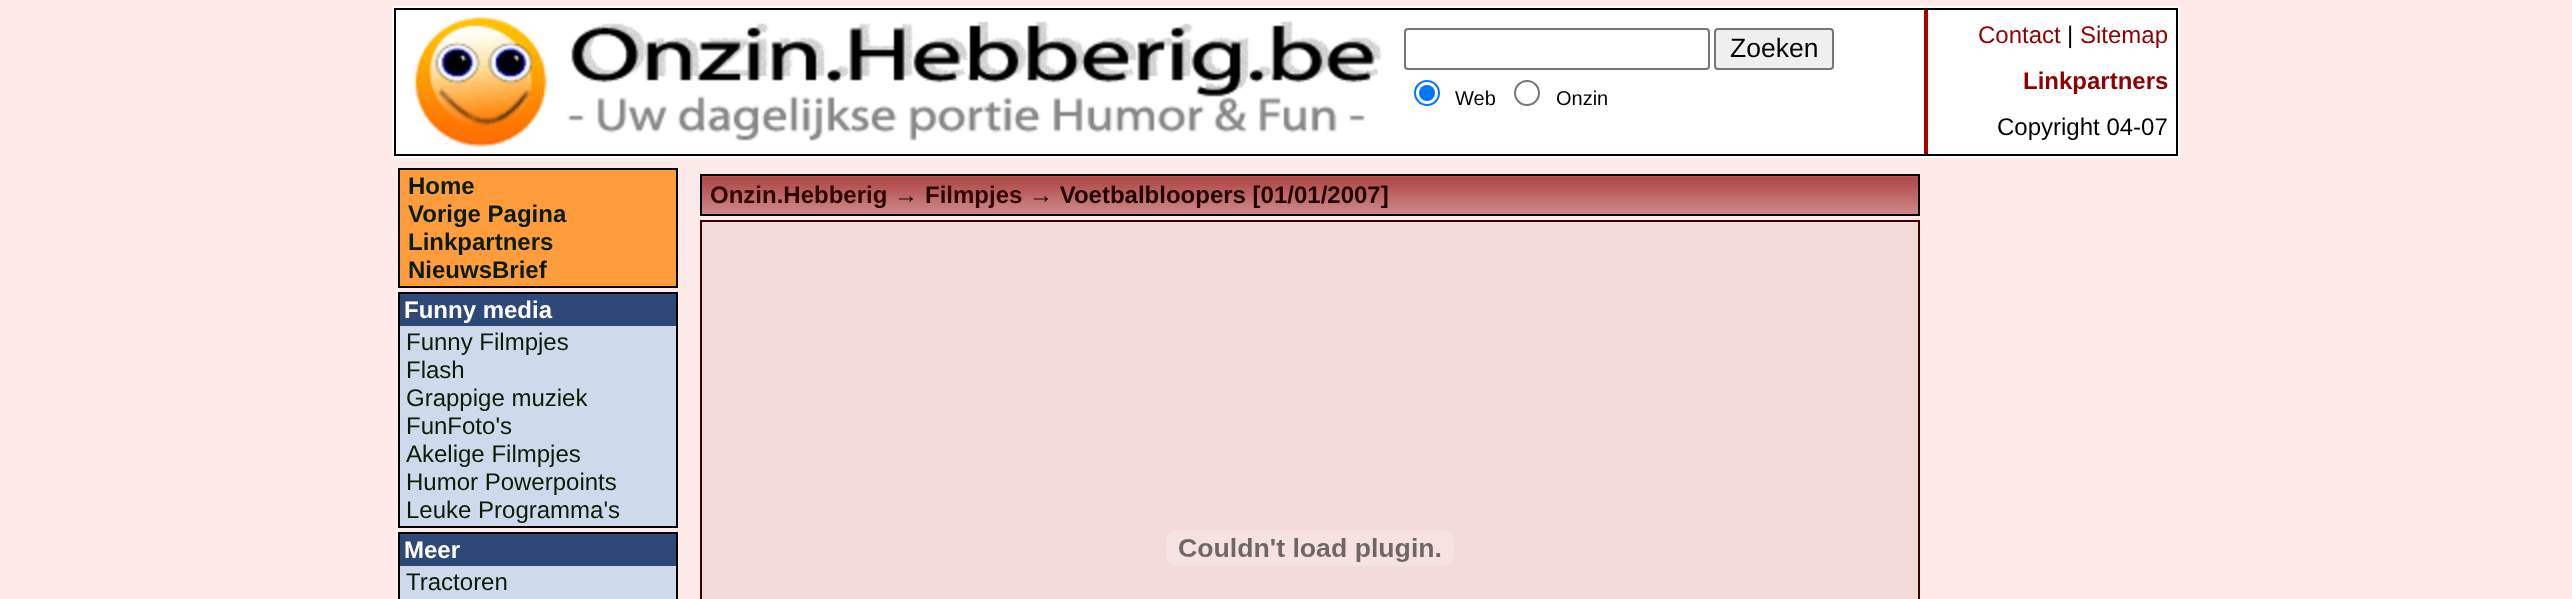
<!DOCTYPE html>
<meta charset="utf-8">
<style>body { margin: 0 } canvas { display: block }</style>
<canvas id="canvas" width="2572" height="599"></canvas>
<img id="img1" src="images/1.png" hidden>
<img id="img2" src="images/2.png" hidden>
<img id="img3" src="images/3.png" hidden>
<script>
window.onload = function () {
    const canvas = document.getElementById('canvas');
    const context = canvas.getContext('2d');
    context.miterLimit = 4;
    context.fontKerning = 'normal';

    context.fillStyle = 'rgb(255, 234, 234)';
    context.fillRect(0, 0, 2572, 599);
    context.fillStyle = 'rgb(255, 255, 255)';
    context.fillRect(392, 6, 1788, 152);
    context.strokeStyle = 'rgb(0, 0, 0)';
    context.lineWidth = 2;
    context.strokeRect(395, 9, 1782, 146);
    context.drawImage(document.getElementById('img1'), 413, 15, 969, 132);
    context.fillStyle = 'rgb(166, 0, 0)';
    context.fillRect(1924, 10, 4, 144);
    context.beginPath();
    context.roundRect(1405, 29, 304, 40, 3);
    context.strokeStyle = 'rgb(118, 118, 118)';
    context.stroke();
    context.fillStyle = 'rgb(239, 239, 239)';
    context.beginPath();
    context.roundRect(1715, 29, 118, 40, 3);
    context.fill();
    context.stroke();
    context.beginPath();
    context.arc(1427, 93, 12, 0, 2 * Math.PI);
    context.strokeStyle = 'rgb(0, 117, 255)';
    context.stroke();
    context.fillStyle = 'rgb(0, 117, 255)';
    context.beginPath();
    context.arc(1427, 93, 8, 0, 2 * Math.PI);
    context.fill();
    context.beginPath();
    context.arc(1527, 93, 12, 0, 2 * Math.PI);
    context.strokeStyle = 'rgb(118, 118, 118)';
    context.stroke();
    context.fillStyle = 'rgb(0, 0, 0)';
    context.fillRect(398, 168, 280, 2);
    context.fillRect(676, 168, 2, 120);
    context.fillRect(398, 286, 280, 2);
    context.fillRect(398, 168, 2, 120);
    context.fillStyle = 'rgb(255, 157, 60)';
    context.fillRect(400, 170, 276, 116);
    context.fillStyle = 'rgb(0, 0, 0)';
    context.fillRect(398, 292, 280, 2);
    context.fillRect(676, 292, 2, 236);
    context.fillRect(398, 526, 280, 2);
    context.fillRect(398, 292, 2, 236);
    context.fillStyle = 'rgb(46, 72, 120)';
    context.fillRect(400, 294, 276, 32);
    context.fillStyle = 'rgb(206, 217, 236)';
    context.fillRect(400, 326, 276, 200);
    context.fillStyle = 'rgb(0, 0, 0)';
    context.fillRect(398, 532, 280, 2);
    context.fillRect(676, 532, 2, 67);
    context.fillRect(398, 532, 2, 67);
    context.fillStyle = 'rgb(46, 72, 120)';
    context.fillRect(400, 534, 276, 32);
    context.fillStyle = 'rgb(206, 217, 236)';
    context.fillRect(400, 566, 276, 33);
    context.drawImage(document.getElementById('img2'), 702, 176, 1216, 38);
    context.strokeStyle = 'rgb(0, 0, 0)';
    context.strokeRect(701, 175, 1218, 40);
    context.fillStyle = 'rgb(243, 219, 218)';
    context.beginPath();
    context.rect(701, 221, 1218, 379);
    context.fill();
    context.strokeStyle = 'rgb(60, 0, 0)';
    context.stroke();
    context.drawImage(document.getElementById('img3'), 1166, 530, 288, 36);
    context.font = '26.5px Liberation Sans';
    context.fillStyle = 'rgb(0, 0, 0)';
    context.fillText('Zoeken', 1730, 57);
    context.font = '20px Liberation Sans';
    context.fillText('Web', 1455, 105);
    context.fillText('Onzin', 1556, 105);
    context.font = '24px Liberation Sans';
    context.fillStyle = 'rgb(145, 0, 0)';
    context.fillText('Contact', 1978, 43);
    context.fillStyle = 'rgb(0, 0, 0)';
    context.fillText('|', 2067, 43);
    context.fillStyle = 'rgb(145, 0, 0)';
    context.fillText('Sitemap', 2080, 43);
    context.font = 'bold 24px Liberation Sans';
    context.fillText('Linkpartners', 2023, 89);
    context.font = '24px Liberation Sans';
    context.fillStyle = 'rgb(0, 0, 0)';
    context.fillText('Copyright 04-07', 1997, 135);
    context.font = 'bold 24px Liberation Sans';
    context.fillStyle = 'rgb(10, 27, 7)';
    context.fillText('Home', 408, 194);
    context.fillText('Vorige Pagina', 408, 222);
    context.fillText('Linkpartners', 408, 250);
    context.fillText('NieuwsBrief', 408, 278);
    context.fillStyle = 'rgb(255, 255, 255)';
    context.fillText('Funny media', 404, 318);
    context.font = '24px Liberation Sans';
    context.fillStyle = 'rgb(10, 27, 7)';
    context.fillText('Funny Filmpjes', 406, 350);
    context.fillText('Flash', 406, 378);
    context.fillText('Grappige muziek', 406, 406);
    context.fillText('FunFoto\'s', 406, 434);
    context.fillText('Akelige Filmpjes', 406, 462);
    context.fillText('Humor Powerpoints', 406, 490);
    context.fillText('Leuke Programma\'s', 406, 518);
    context.font = 'bold 24px Liberation Sans';
    context.fillStyle = 'rgb(255, 255, 255)';
    context.fillText('Meer', 404, 558);
    context.font = '24px Liberation Sans';
    context.fillStyle = 'rgb(10, 27, 7)';
    context.fillText('Tractoren', 406, 590);
    context.font = 'bold 24px Liberation Sans';
    context.fillStyle = 'rgb(47, 0, 0)';
    context.fillText('Onzin.Hebberig', 710, 203);
    context.fillStyle = 'rgb(32, 0, 0)';
    context.fillText('→', 894, 203);
    context.fillStyle = 'rgb(47, 0, 0)';
    context.fillText('Filmpjes', 925, 203);
    context.fillStyle = 'rgb(32, 0, 0)';
    context.fillText('→ Voetbalbloopers [01/01/2007]', 1029, 203);
};
</script>
